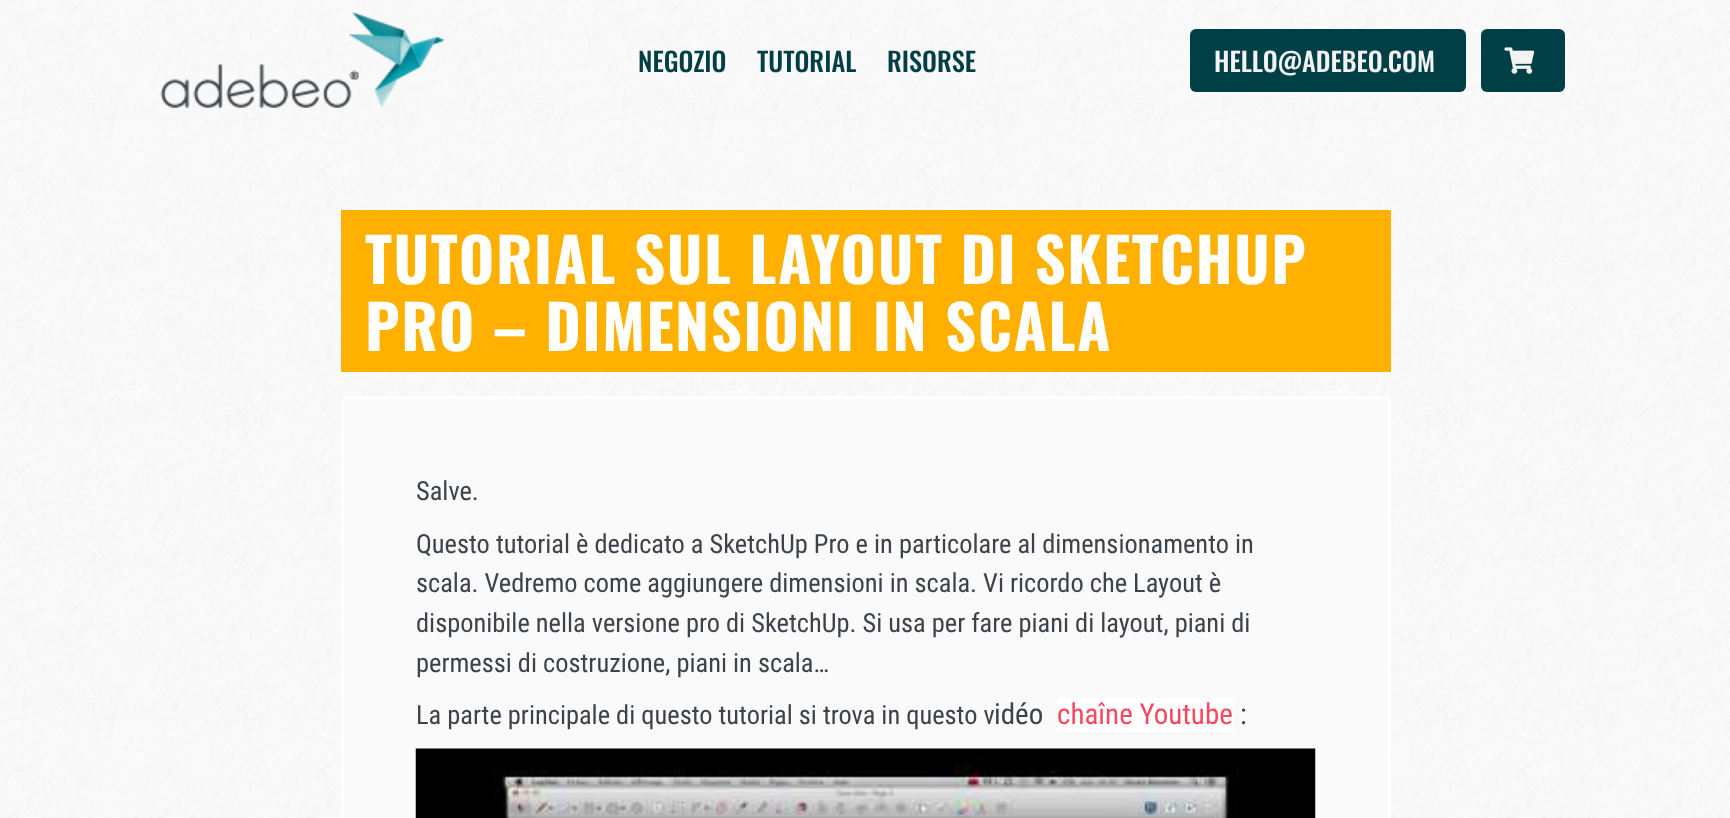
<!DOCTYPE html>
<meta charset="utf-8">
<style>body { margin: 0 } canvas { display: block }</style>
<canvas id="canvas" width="1730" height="818"></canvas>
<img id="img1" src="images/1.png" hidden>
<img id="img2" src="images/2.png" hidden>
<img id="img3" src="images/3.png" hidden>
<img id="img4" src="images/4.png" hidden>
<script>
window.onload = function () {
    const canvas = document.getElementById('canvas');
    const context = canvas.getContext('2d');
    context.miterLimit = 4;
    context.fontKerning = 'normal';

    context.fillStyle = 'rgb(255, 255, 255)';
    context.fillRect(0, 0, 1730, 818);
    context.drawImage(document.getElementById('img1'), 0, 0, 1730, 818);
    context.drawImage(document.getElementById('img2'), 160, 12, 285, 96);
    context.fillStyle = 'rgb(1, 63, 71)';
    context.beginPath();
    context.roundRect(1190, 29, 276, 63, 6);
    context.fill();
    context.beginPath();
    context.roundRect(1481, 29, 84, 63, 6);
    context.fill();
    context.drawImage(document.getElementById('img3'), 1504, 47, 31, 27);
    context.fillStyle = 'rgb(255, 176, 0)';
    context.fillRect(341, 210, 1050, 162);
    context.fillStyle = 'rgb(250, 250, 250)';
    context.beginPath();
    context.roundRect(342.5, 397.5, 1047, 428, 4.5);
    context.fill();
    context.strokeStyle = 'rgb(255, 255, 255)';
    context.lineWidth = 3;
    context.stroke();
    context.fillStyle = 'rgb(255, 255, 255)';
    context.fillRect(1058, 698, 175, 34);
    context.drawImage(document.getElementById('img4'), 415, 748, 901, 70);
    context.font = '500 26.4px Oswald';
    context.fillStyle = 'rgb(1, 63, 71)';
    context.fillText('NEGOZIO', 638, 72);
    context.fillText('TUTORIAL', 757, 72);
    context.fillText('RISORSE', 887, 72);
    context.fillStyle = 'rgb(242, 243, 242)';
    context.fillText('HELLO@ADEBEO.COM', 1214, 72);
    context.letterSpacing = '1.5px';
    context.font = 'bold 60.75px Oswald';
    context.fillStyle = 'rgb(255, 255, 255)';
    context.fillText('TUTORIAL SUL LAYOUT DI SKETCHUP', 365, 284);
    context.fillText('PRO – DIMENSIONI IN SCALA', 365, 351);
    context.letterSpacing = '0px';
    context.font = '26.4px Roboto Condensed';
    context.fillStyle = 'rgb(60, 67, 74)';
    context.fillText('Salve.', 416, 500);
    context.fillText('Questo tutorial è dedicato a SketchUp Pro e in particolare al dimensionamento in', 416, 553);
    context.fillText('scala. Vedremo come aggiungere dimensioni in scala. Vi ricordo che Layout è', 416, 592);
    context.fillText('disponibile nella versione pro di SketchUp. Si usa per fare piani di layout, piani di', 416, 632);
    context.fillText('permessi di costruzione, piani in scala…', 416, 672);
    context.fillText('La parte principale di questo tutorial si trova in questo v', 416, 724);
    context.font = '29px Roboto Condensed';
    context.fillText('idéo', 994, 724);
    context.fillStyle = 'rgb(248, 71, 94)';
    context.fillText('chaîne Youtube', 1057, 724);
    context.fillStyle = 'rgb(60, 67, 74)';
    context.fillText(':', 1240, 724);
};
</script>
